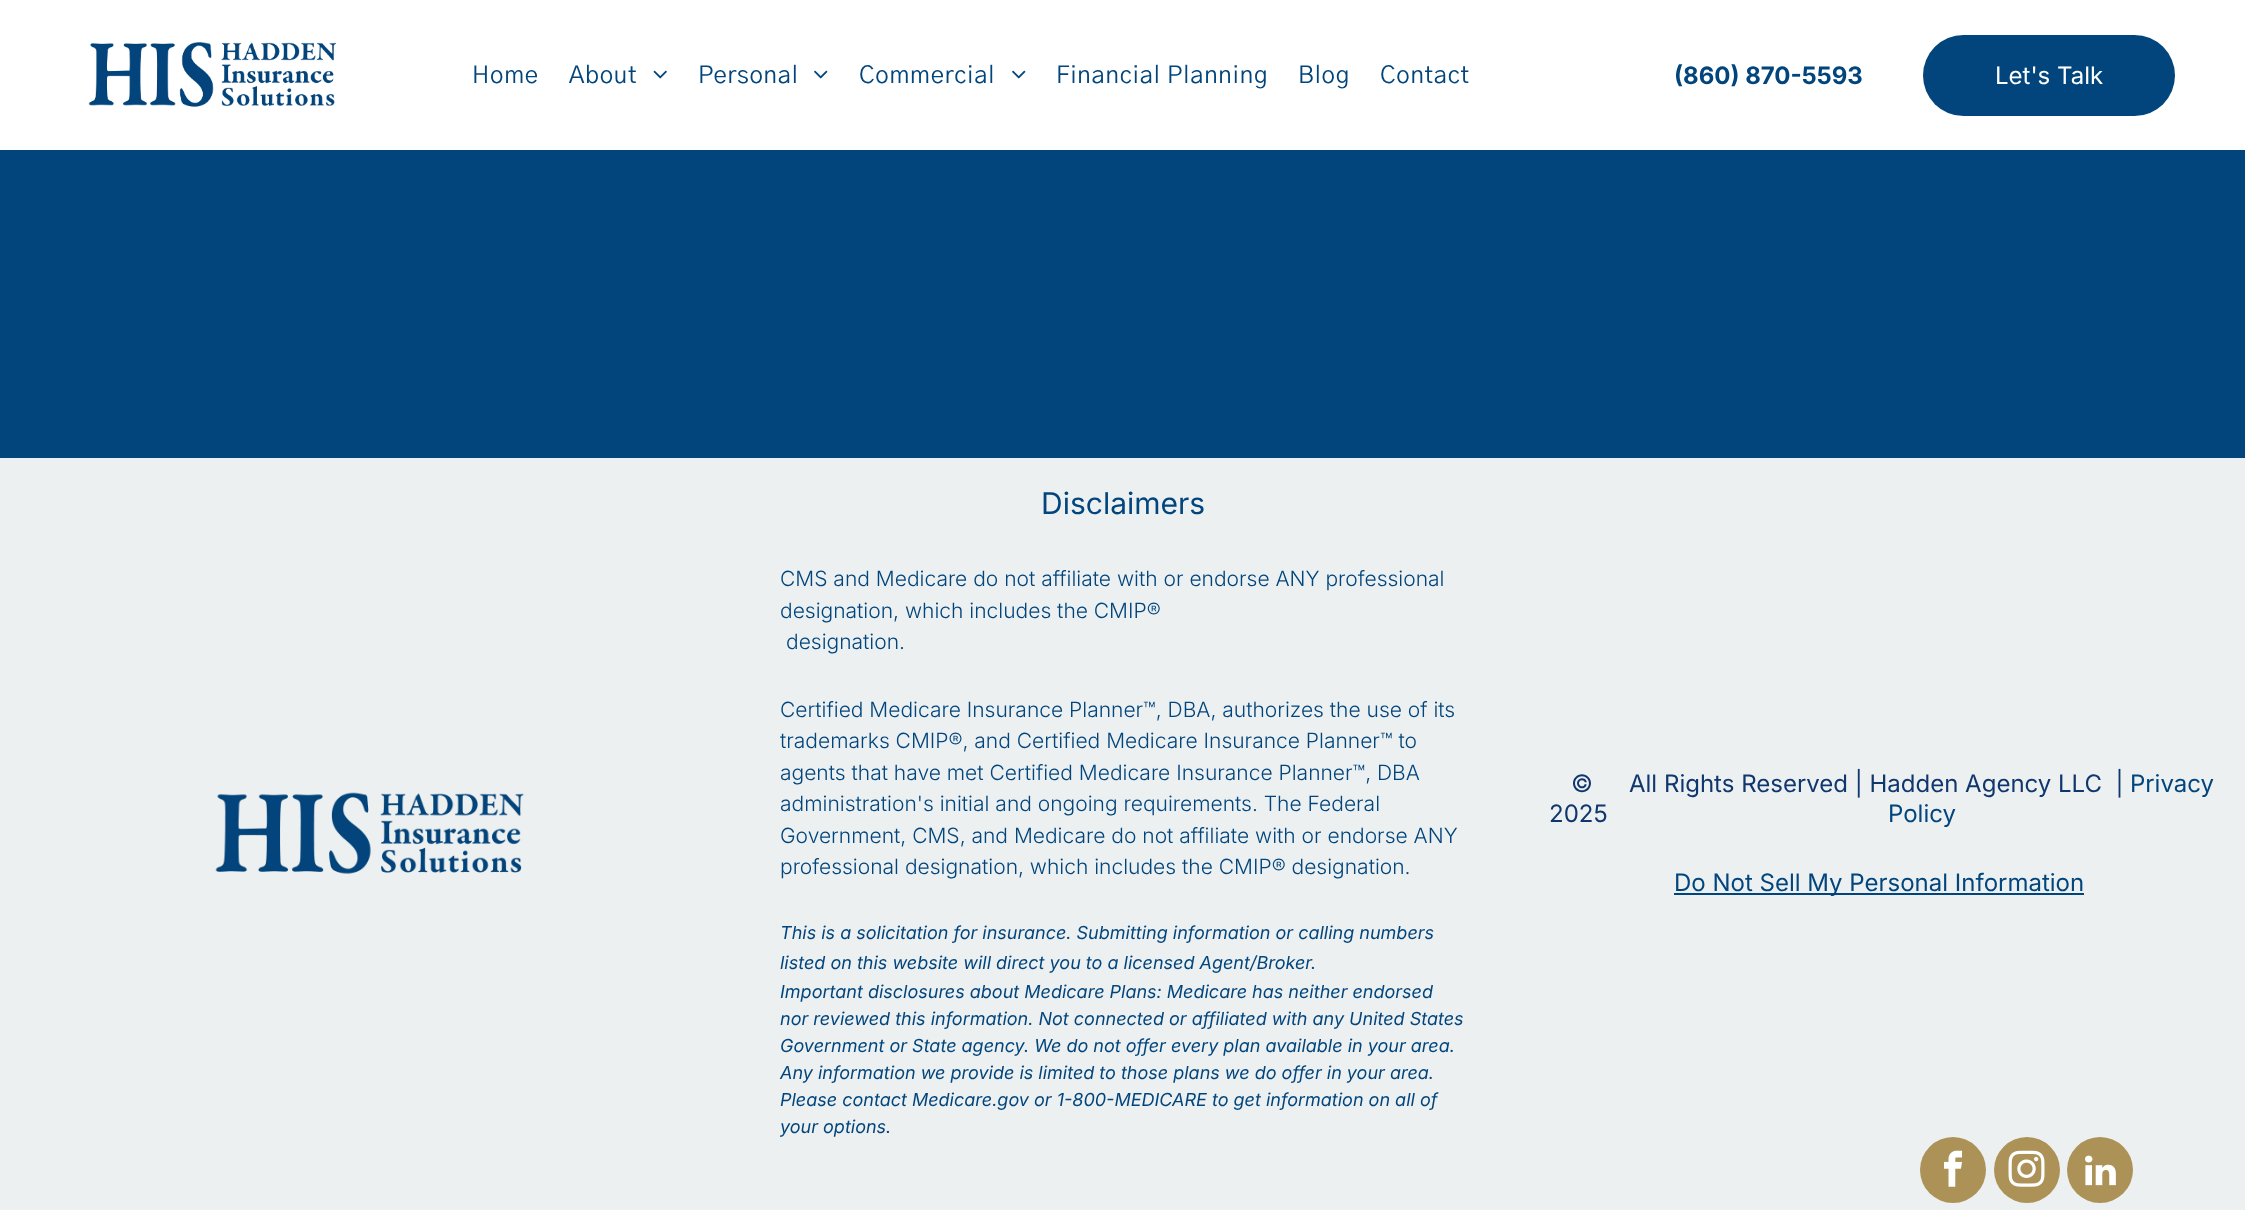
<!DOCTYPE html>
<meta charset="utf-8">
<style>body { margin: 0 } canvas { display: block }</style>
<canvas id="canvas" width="2245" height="1210"></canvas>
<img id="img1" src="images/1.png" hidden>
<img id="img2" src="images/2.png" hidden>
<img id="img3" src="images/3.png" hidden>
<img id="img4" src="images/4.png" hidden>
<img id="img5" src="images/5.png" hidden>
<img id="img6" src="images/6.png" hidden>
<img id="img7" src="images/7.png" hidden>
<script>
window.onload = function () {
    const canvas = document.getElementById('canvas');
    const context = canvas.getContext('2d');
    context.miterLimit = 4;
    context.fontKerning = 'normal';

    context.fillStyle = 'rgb(2, 69, 124)';
    context.fillRect(0, 0, 2245, 1210);
    context.fillStyle = 'rgb(255, 255, 255)';
    context.fillRect(0, 0, 2245, 150);
    context.drawImage(document.getElementById('img1'), 88, 42, 249, 65);
    context.drawImage(document.getElementById('img2'), 653, 70, 14, 9);
    context.drawImage(document.getElementById('img3'), 814, 70, 14, 9);
    context.drawImage(document.getElementById('img3'), 1012, 70, 14, 9);
    context.fillStyle = 'rgb(2, 69, 124)';
    context.beginPath();
    context.roundRect(1923, 35, 252, 81, 40.5);
    context.fill();
    context.fillStyle = 'rgb(236, 240, 241)';
    context.fillRect(0, 458, 2245, 752);
    context.drawImage(document.getElementById('img4'), 215, 792, 309, 82);
    context.fillStyle = 'rgb(2, 69, 124)';
    context.fillRect(1674, 893, 410, 2);
    context.fillStyle = 'rgb(172, 146, 87)';
    context.beginPath();
    context.arc(1953, 1170, 33, 0, 2 * Math.PI);
    context.fill();
    context.drawImage(document.getElementById('img5'), 1944, 1150, 19, 37);
    context.beginPath();
    context.arc(2027, 1170, 33, 0, 2 * Math.PI);
    context.fill();
    context.drawImage(document.getElementById('img6'), 2008, 1150, 37, 37);
    context.beginPath();
    context.arc(2100, 1170, 33, 0, 2 * Math.PI);
    context.fill();
    context.drawImage(document.getElementById('img7'), 2085, 1155, 31, 31);
    context.letterSpacing = '0.75px';
    context.font = '24px "Gothic A1"';
    context.fillStyle = 'rgb(2, 69, 124)';
    context.fillText('Home', 472, 83);
    context.fillText('About', 569, 83);
    context.fillText('Personal', 698, 83);
    context.fillText('Commercial', 859, 83);
    context.fillText('Financial Planning', 1056, 83);
    context.fillText('Blog', 1298, 83);
    context.fillText('Contact', 1380, 83);
    context.letterSpacing = '0px';
    context.font = 'bold 24px Inter';
    context.fillText('(860) 870-5593', 1674, 84);
    context.font = '24px Inter';
    context.fillStyle = 'rgb(255, 255, 255)';
    context.fillText('Let\'s Talk', 1995, 84);
    context.font = '30px Inter';
    context.fillStyle = 'rgb(2, 69, 124)';
    context.fillText('Disclaimers', 1041, 514);
    context.font = '300 21px Inter';
    context.fillText('CMS and Medicare do not affiliate with or endorse ANY professional', 780, 586);
    context.fillText('designation, which includes the CMIP®', 780, 618);
    context.fillText('designation.', 786, 649);
    context.fillText('Certified Medicare Insurance Planner™, DBA, authorizes the use of its', 780, 717);
    context.fillText('trademarks CMIP®, and Certified Medicare Insurance Planner™ to', 780, 748);
    context.fillText('agents that have met Certified Medicare Insurance Planner™, DBA', 780, 780);
    context.fillText('administration\'s initial and ongoing requirements. The Federal', 780, 811);
    context.fillText('Government, CMS, and Medicare do not affiliate with or endorse ANY', 780, 843);
    context.fillText('professional designation, which includes the CMIP® designation.', 780, 874);
    context.font = 'italic 18px Inter';
    context.fillText('This is a solicitation for insurance. Submitting information or calling numbers', 780, 939);
    context.fillText('listed on this website will direct you to a licensed Agent/Broker.', 780, 969);
    context.fillText('Important disclosures about Medicare Plans: Medicare has neither endorsed', 780, 998);
    context.fillText('nor reviewed this information. Not connected or affiliated with any United States', 780, 1025);
    context.fillText('Government or State agency. We do not offer every plan available in your area.', 780, 1052);
    context.fillText('Any information we provide is limited to those plans we do offer in your area.', 780, 1079);
    context.fillText('Please contact Medicare.gov or 1-800-MEDICARE to get information on all of', 780, 1106);
    context.fillText('your options.', 780, 1133);
    context.font = '24px Inter';
    context.fillStyle = 'rgb(15, 54, 109)';
    context.fillText('©', 1571, 792);
    context.fillText('2025', 1549, 822);
    context.fillText('All Rights Reserved | Hadden Agency LLC  |', 1629, 792);
    context.fillStyle = 'rgb(2, 69, 124)';
    context.fillText('Privacy', 2130, 792);
    context.fillText('Policy', 1888, 822);
    context.fillText('Do Not Sell My Personal Information', 1674, 891);
};
</script>
